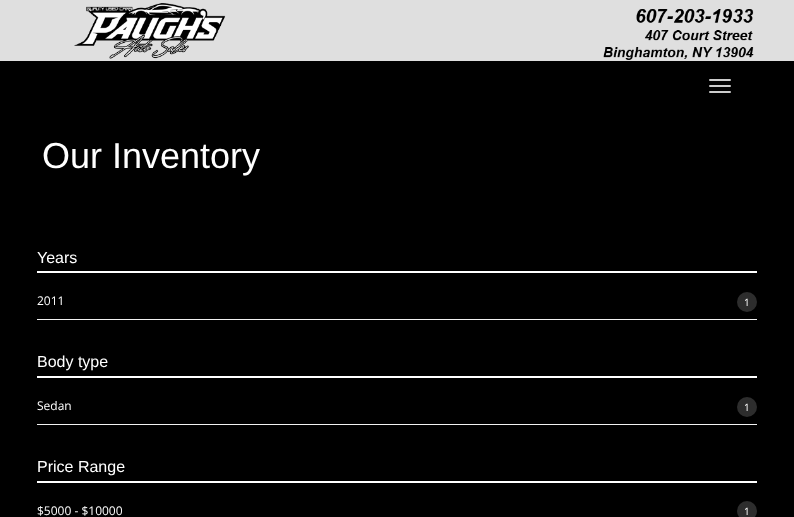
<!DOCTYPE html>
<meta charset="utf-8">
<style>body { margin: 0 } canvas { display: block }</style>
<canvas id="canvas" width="794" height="517"></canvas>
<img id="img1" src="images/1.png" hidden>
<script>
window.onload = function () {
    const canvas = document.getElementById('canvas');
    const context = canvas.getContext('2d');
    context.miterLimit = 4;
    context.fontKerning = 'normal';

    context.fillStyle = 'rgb(0, 0, 0)';
    context.fillRect(0, 0, 794, 517);
    context.fillStyle = 'rgb(223, 223, 223)';
    context.fillRect(0, 0, 794, 61);
    context.drawImage(document.getElementById('img1'), 74, 3, 680, 57);
    context.fillStyle = 'rgb(204, 204, 204)';
    context.beginPath();
    context.roundRect(709, 79, 22, 2, 1);
    context.fill();
    context.beginPath();
    context.roundRect(709, 85, 22, 2, 1);
    context.fill();
    context.beginPath();
    context.roundRect(709, 91, 22, 2, 1);
    context.fill();
    context.fillStyle = 'rgb(255, 255, 255)';
    context.fillRect(37, 271, 720, 2);
    context.fillStyle = 'rgb(241, 241, 241)';
    context.fillRect(37, 319, 720, 1);
    context.fillStyle = 'rgb(45, 45, 45)';
    context.beginPath();
    context.arc(747, 302, 10, 0, 2 * Math.PI);
    context.fill();
    context.fillStyle = 'rgb(255, 255, 255)';
    context.fillRect(37, 376, 720, 2);
    context.fillStyle = 'rgb(241, 241, 241)';
    context.fillRect(37, 424, 720, 1);
    context.fillStyle = 'rgb(45, 45, 45)';
    context.beginPath();
    context.arc(747, 407, 10, 0, 2 * Math.PI);
    context.fill();
    context.fillStyle = 'rgb(255, 255, 255)';
    context.fillRect(37, 481, 720, 2);
    context.fillStyle = 'rgb(45, 45, 45)';
    context.beginPath();
    context.arc(747, 511, 10, 0, 2 * Math.PI);
    context.fill();
    context.font = '36px Liberation Sans';
    context.fillStyle = 'rgb(255, 255, 255)';
    context.fillText('Our Inventory', 42, 168);
    context.font = '16px Liberation Sans';
    context.fillText('Years', 37, 263);
    context.font = '12px Open Sans';
    context.fillText('2011', 37, 305);
    context.font = '10px Open Sans';
    context.fillText('1', 744, 306);
    context.font = '16px Liberation Sans';
    context.fillText('Body type', 37, 367);
    context.font = '12px Open Sans';
    context.fillText('Sedan', 37, 410);
    context.font = '10px Open Sans';
    context.fillText('1', 744, 411);
    context.font = '16px Liberation Sans';
    context.fillText('Price Range', 37, 472);
    context.font = '12px Open Sans';
    context.fillText('$5000 - $10000', 37, 515);
    context.font = '10px Open Sans';
    context.fillText('1', 744, 515);
};
</script>
